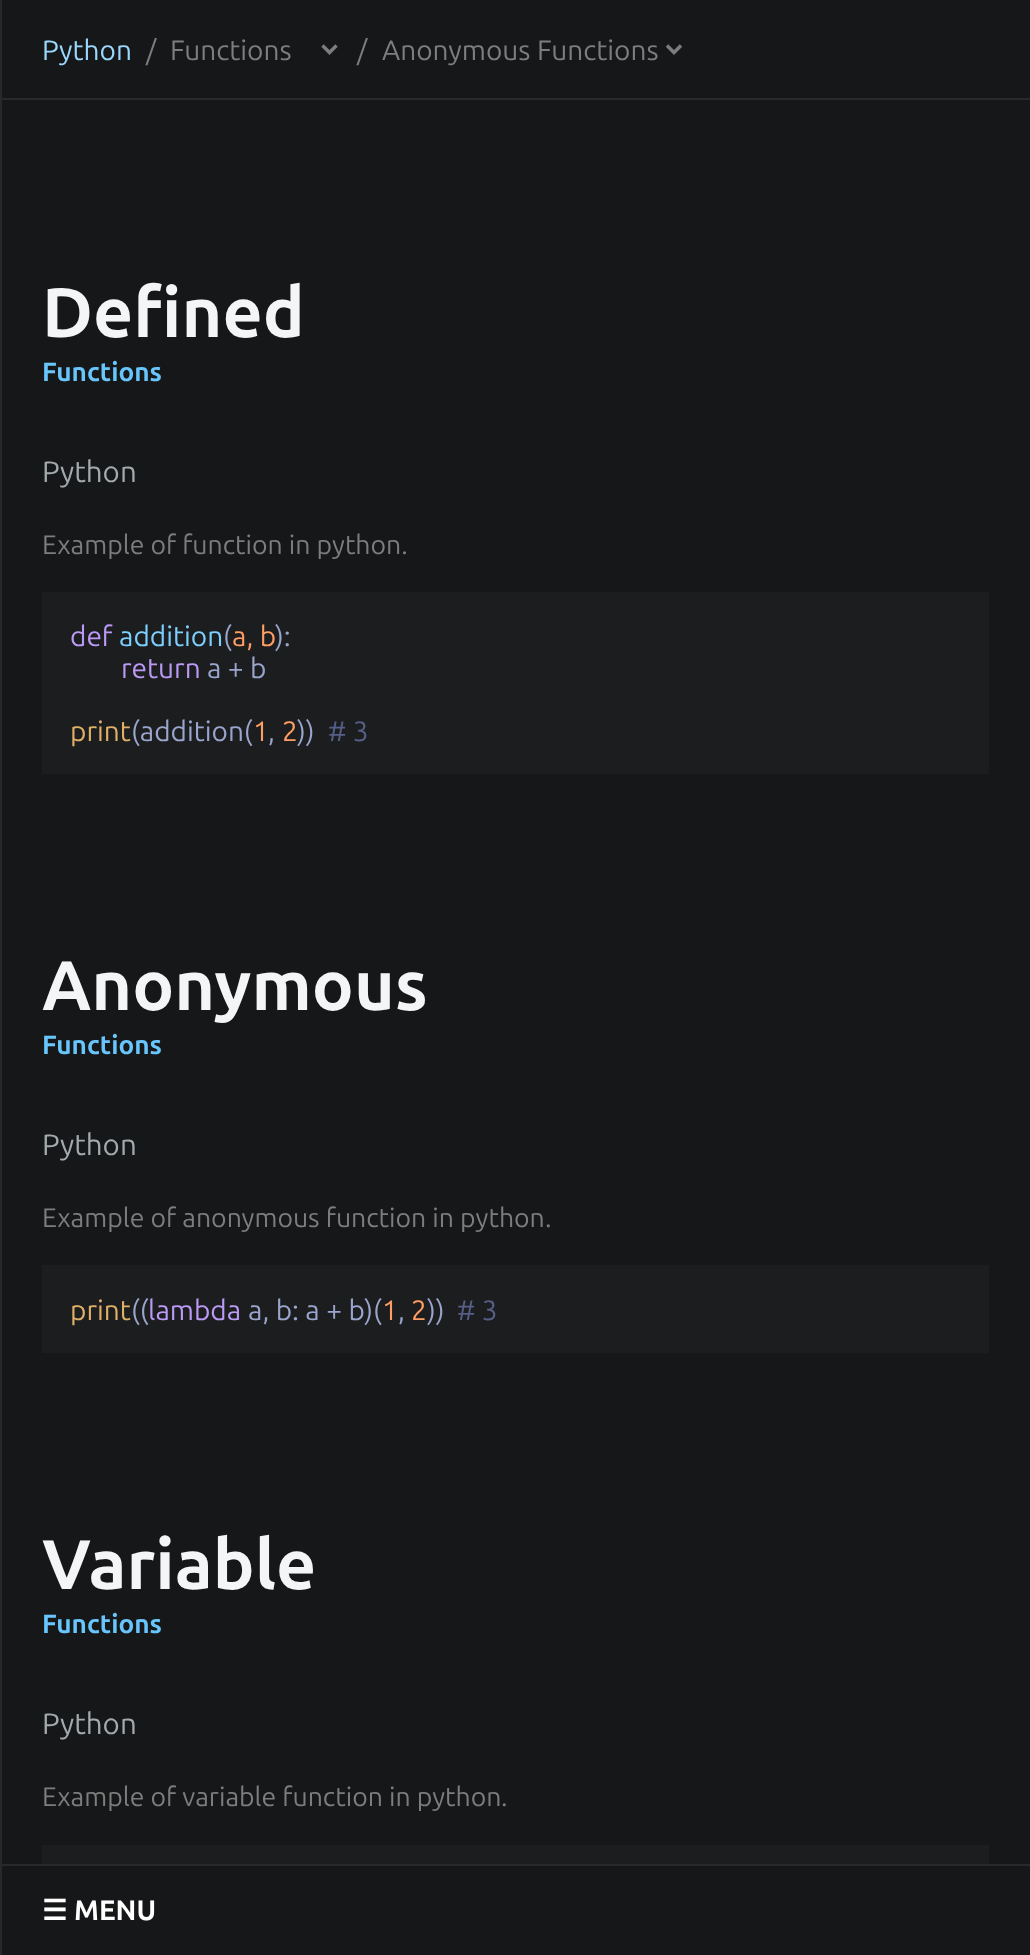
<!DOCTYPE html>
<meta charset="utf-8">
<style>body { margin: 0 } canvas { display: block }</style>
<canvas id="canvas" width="1030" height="1955"></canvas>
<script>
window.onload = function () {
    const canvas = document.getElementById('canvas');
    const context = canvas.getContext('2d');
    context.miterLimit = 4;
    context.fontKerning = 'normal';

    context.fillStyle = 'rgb(22, 23, 24)';
    context.fillRect(0, 0, 1030, 1955);
    context.fillStyle = 'rgb(40, 41, 42)';
    context.fillRect(0, 98, 1030, 2);
    context.fillRect(0, 1864, 1030, 2);
    context.beginPath();
    context.moveTo(-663, 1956);
    context.lineTo(-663, 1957);
    context.lineTo(2, 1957);
    context.lineTo(2, 0);
    context.lineTo(0, 0);
    context.lineTo(0, 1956);
    context.closePath();
    context.fill();
    context.beginPath();
    context.moveTo(322.5, 45.5);
    context.lineTo(329.5, 52.5);
    context.lineTo(336.5, 45.5);
    context.strokeStyle = 'rgb(125, 125, 125)';
    context.lineWidth = 3.5;
    context.stroke();
    context.beginPath();
    context.moveTo(667, 45.5);
    context.lineTo(674, 52.5);
    context.lineTo(681, 45.5);
    context.stroke();
    context.fillStyle = 'rgb(28, 29, 30)';
    context.fillRect(42, 592, 947, 182);
    context.fillRect(42, 1265, 947, 88);
    context.fillRect(42, 1845, 947, 19);
    context.font = '28px Ubuntu';
    context.fillStyle = 'rgb(154, 216, 254)';
    context.fillText('Python', 42, 60);
    context.fillStyle = 'rgb(125, 125, 125)';
    context.fillText('/', 146, 60);
    context.fillText('Functions', 170, 60);
    context.fillText('/', 357, 60);
    context.fillText('Anonymous Functions', 382, 60);
    context.font = 'bold 28px DejaVu Sans';
    context.fillStyle = 'rgb(255, 255, 255)';
    context.fillText('☰', 42, 1920);
    context.font = 'bold 28px Ubuntu';
    context.fillText('MENU', 74, 1920);
    context.font = 'bold 70px Ubuntu';
    context.fillStyle = 'rgb(243, 245, 247)';
    context.fillText('Defined', 42, 337);
    context.font = 'bold 26.25px Ubuntu';
    context.fillStyle = 'rgb(104, 198, 253)';
    context.fillText('Functions', 42, 381);
    context.font = '29.5px Ubuntu';
    context.fillStyle = 'rgb(163, 170, 174)';
    context.fillText('Python', 42, 482);
    context.font = '26.6px Ubuntu';
    context.fillStyle = 'rgb(125, 125, 125)';
    context.fillText('Example of function in python.', 42, 554);
    context.font = '28px Ubuntu';
    context.fillStyle = 'rgb(187, 154, 247)';
    context.fillText('def', 70, 646);
    context.fillStyle = 'rgb(125, 207, 255)';
    context.fillText('addition', 119, 646);
    context.fillStyle = 'rgb(154, 165, 206)';
    context.fillText('(', 223, 646);
    context.fillStyle = 'rgb(255, 158, 100)';
    context.fillText('a, b', 232, 646);
    context.fillStyle = 'rgb(154, 165, 206)';
    context.fillText('):', 275, 646);
    context.fillStyle = 'rgb(187, 154, 247)';
    context.fillText('return', 121, 678);
    context.fillStyle = 'rgb(154, 165, 206)';
    context.fillText('a + b', 207, 678);
    context.fillStyle = 'rgb(224, 175, 104)';
    context.fillText('print', 70, 741);
    context.fillStyle = 'rgb(154, 165, 206)';
    context.fillText('(addition(', 131, 741);
    context.fillStyle = 'rgb(255, 158, 100)';
    context.fillText('1', 253, 741);
    context.fillStyle = 'rgb(154, 165, 206)';
    context.fillText(',', 268, 741);
    context.fillStyle = 'rgb(255, 158, 100)';
    context.fillText('2', 282, 741);
    context.fillStyle = 'rgb(154, 165, 206)';
    context.fillText('))', 297, 741);
    context.fillStyle = 'rgb(86, 95, 137)';
    context.fillText('# 3', 328, 741);
    context.font = 'bold 70px Ubuntu';
    context.fillStyle = 'rgb(243, 245, 247)';
    context.fillText('Anonymous', 42, 1010);
    context.font = 'bold 26.25px Ubuntu';
    context.fillStyle = 'rgb(104, 198, 253)';
    context.fillText('Functions', 42, 1054);
    context.font = '29.5px Ubuntu';
    context.fillStyle = 'rgb(163, 170, 174)';
    context.fillText('Python', 42, 1155);
    context.font = '26.6px Ubuntu';
    context.fillStyle = 'rgb(125, 125, 125)';
    context.fillText('Example of anonymous function in python', 42, 1227);
    context.fillText('.', 545, 1227);
    context.font = '28px Ubuntu';
    context.fillStyle = 'rgb(224, 175, 104)';
    context.fillText('print', 70, 1320);
    context.fillStyle = 'rgb(154, 165, 206)';
    context.fillText('((', 131, 1320);
    context.fillStyle = 'rgb(187, 154, 247)';
    context.fillText('lambda', 148, 1320);
    context.fillStyle = 'rgb(154, 165, 206)';
    context.fillText('a, b: a + b)(', 248, 1320);
    context.fillStyle = 'rgb(255, 158, 100)';
    context.fillText('1', 382, 1320);
    context.fillStyle = 'rgb(154, 165, 206)';
    context.fillText(',', 398, 1320);
    context.fillStyle = 'rgb(255, 158, 100)';
    context.fillText('2', 411, 1320);
    context.fillStyle = 'rgb(154, 165, 206)';
    context.fillText('))', 427, 1320);
    context.fillStyle = 'rgb(86, 95, 137)';
    context.fillText('# 3', 457, 1320);
    context.font = 'bold 70px Ubuntu';
    context.fillStyle = 'rgb(243, 245, 247)';
    context.fillText('Variable', 42, 1589);
    context.font = 'bold 26.25px Ubuntu';
    context.fillStyle = 'rgb(104, 198, 253)';
    context.fillText('Functions', 42, 1633);
    context.font = '29.5px Ubuntu';
    context.fillStyle = 'rgb(163, 170, 174)';
    context.fillText('Python', 42, 1734);
    context.font = '26.6px Ubuntu';
    context.fillStyle = 'rgb(125, 125, 125)';
    context.fillText('Example of variable function in python', 42, 1806);
    context.fillText('.', 501, 1806);
};
</script>
